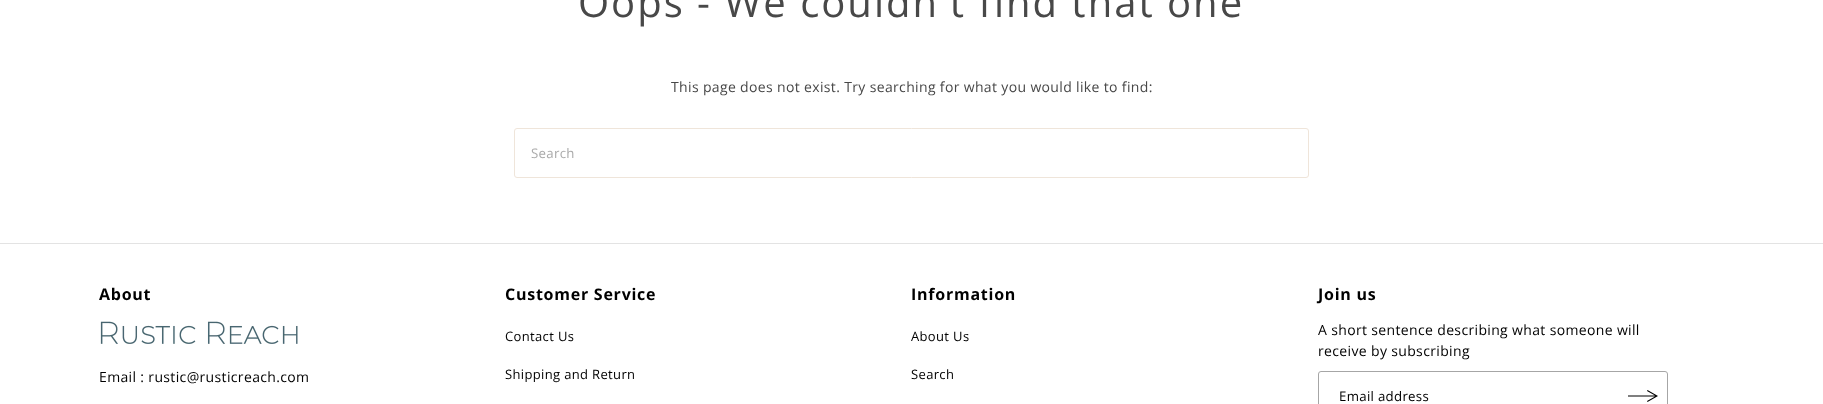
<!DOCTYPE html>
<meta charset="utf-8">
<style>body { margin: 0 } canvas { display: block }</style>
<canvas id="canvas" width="1823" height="404"></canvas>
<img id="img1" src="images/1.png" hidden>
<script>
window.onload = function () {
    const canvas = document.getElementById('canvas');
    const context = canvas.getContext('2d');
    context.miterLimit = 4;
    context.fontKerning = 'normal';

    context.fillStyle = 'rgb(255, 255, 255)';
    context.fillRect(0, 0, 1823, 404);
    context.beginPath();
    context.roundRect(514.5, 128.5, 794, 49, 2.5);
    context.strokeStyle = 'rgb(239, 229, 218)';
    context.stroke();
    context.fillStyle = 'rgb(227, 227, 227)';
    context.fillRect(0, 243, 1823, 1);
    context.drawImage(document.getElementById('img1'), 100, 321, 198, 23);
    context.beginPath();
    context.roundRect(1318.5, 371.5, 349, 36, 2.5);
    context.strokeStyle = 'rgb(166, 166, 166)';
    context.stroke();
    context.fillStyle = 'rgb(0, 0, 0)';
    context.beginPath();
    context.moveTo(1647.5, 390);
    context.lineTo(1658, 396);
    context.lineTo(1647.5, 402);
    context.lineTo(1647, 401);
    context.lineTo(1655, 396.5);
    context.lineTo(1628, 396.5);
    context.lineTo(1628, 395.5);
    context.lineTo(1655, 395.5);
    context.lineTo(1647, 391);
    context.closePath();
    context.fill();
    context.letterSpacing = '2px';
    context.font = '40px Open Sans';
    context.fillStyle = 'rgb(72, 72, 72)';
    context.fillText('Oops - We couldn\'t find that one', 578, 17);
    context.letterSpacing = '0.35px';
    context.font = '14px Open Sans';
    context.fillText('This page does not exist. Try searching for what you would like to find:', 671, 92);
    context.letterSpacing = '0.3px';
    context.font = '13.25px Open Sans';
    context.fillStyle = 'rgb(170, 170, 170)';
    context.fillText('Search', 531, 158);
    context.letterSpacing = '0.75px';
    context.font = 'bold 16px Open Sans';
    context.fillStyle = 'rgb(0, 0, 0)';
    context.fillText('About', 99, 300);
    context.letterSpacing = '0.35px';
    context.font = '14px Open Sans';
    context.fillText('Email : rustic@rusticreach.com', 99, 382);
    context.letterSpacing = '0.75px';
    context.font = 'bold 16px Open Sans';
    context.fillText('Customer Service', 505, 300);
    context.letterSpacing = '0.35px';
    context.font = '13px Open Sans';
    context.fillText('Contact Us', 505, 341);
    context.fillText('Shipping and Return', 505, 379);
    context.letterSpacing = '0.75px';
    context.font = 'bold 16px Open Sans';
    context.fillText('Information', 911, 300);
    context.letterSpacing = '0.35px';
    context.font = '13px Open Sans';
    context.fillText('About Us', 911, 341);
    context.fillText('Search', 911, 379);
    context.letterSpacing = '0.75px';
    context.font = 'bold 16px Open Sans';
    context.fillText('Join us', 1318, 300);
    context.letterSpacing = '0.35px';
    context.font = '14px Open Sans';
    context.fillText('A short sentence describing what someone will', 1318, 335);
    context.fillText('receive by subscribing', 1318, 356);
    context.letterSpacing = '0.3px';
    context.font = '13.25px Open Sans';
    context.fillText('Email address', 1339, 401);
};
</script>
